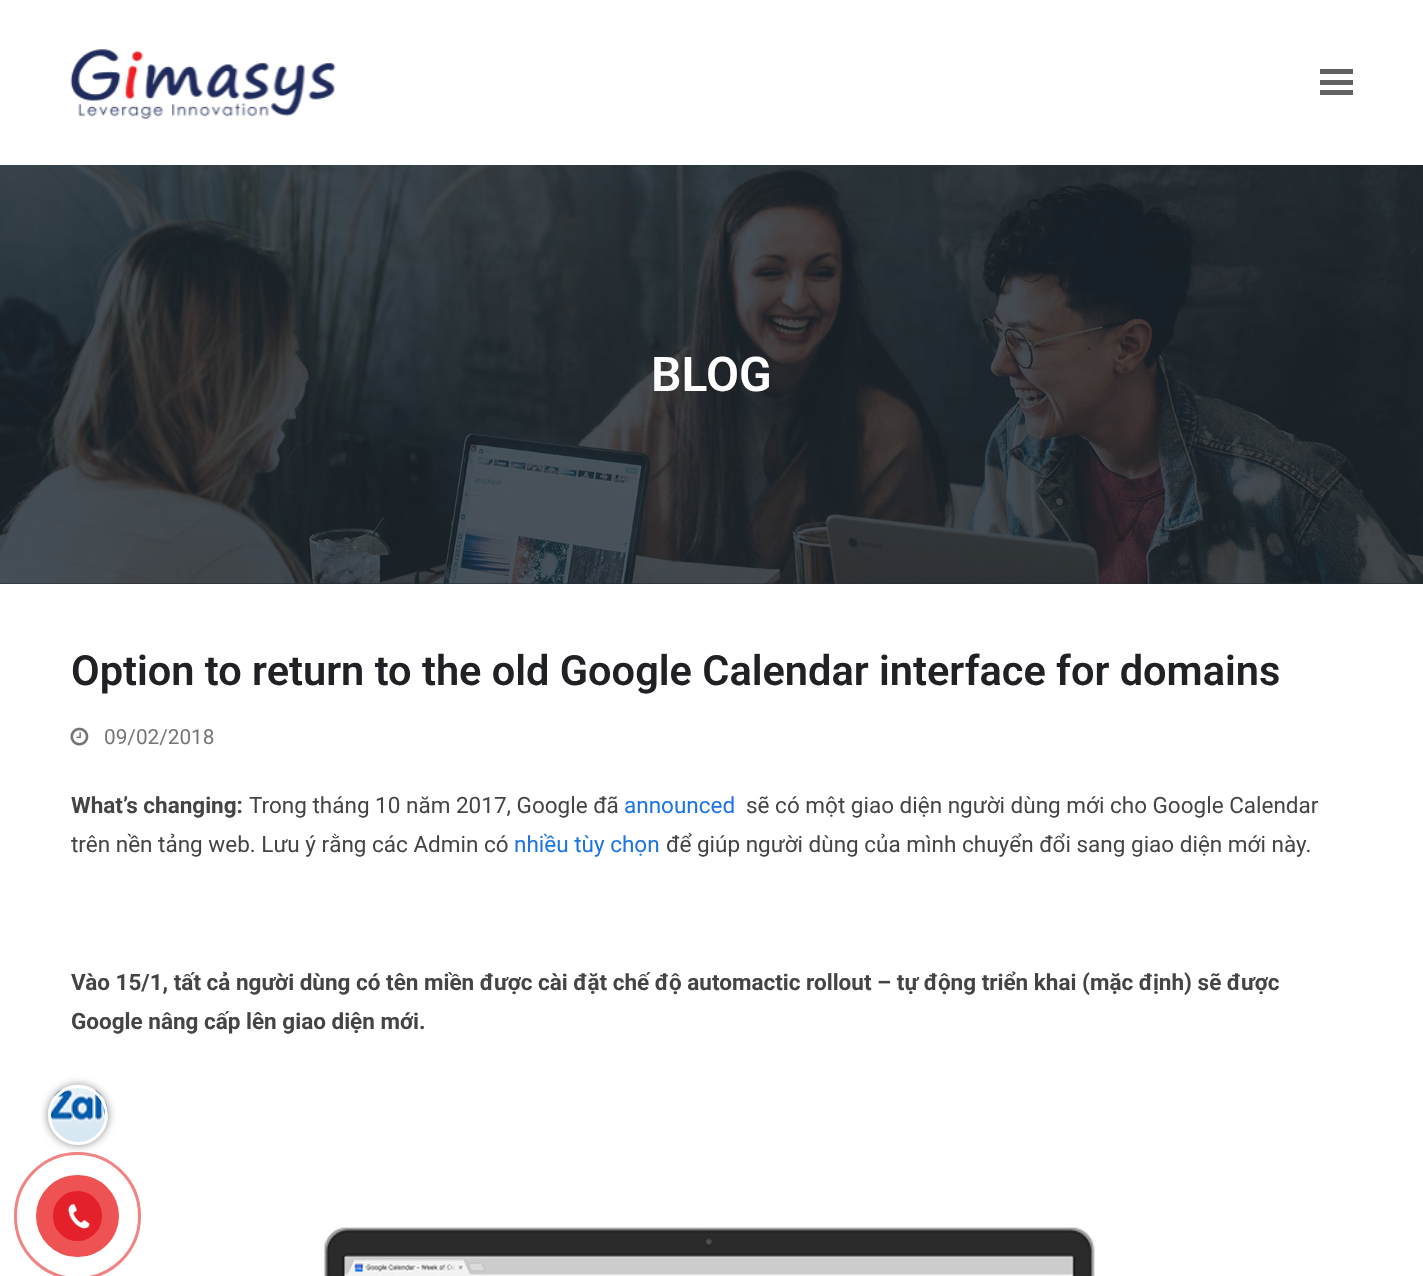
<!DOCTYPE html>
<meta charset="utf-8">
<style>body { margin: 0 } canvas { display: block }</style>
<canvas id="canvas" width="1423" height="1276"></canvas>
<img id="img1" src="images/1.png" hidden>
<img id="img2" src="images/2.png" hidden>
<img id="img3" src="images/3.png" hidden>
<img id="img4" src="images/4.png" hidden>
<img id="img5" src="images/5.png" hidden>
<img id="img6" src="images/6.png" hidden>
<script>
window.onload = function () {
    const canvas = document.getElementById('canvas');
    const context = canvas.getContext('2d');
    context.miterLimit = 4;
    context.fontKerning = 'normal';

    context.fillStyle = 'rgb(255, 255, 255)';
    context.fillRect(0, 0, 1423, 1276);
    context.drawImage(document.getElementById('img1'), 70, 49, 266, 70);
    context.fillStyle = 'rgb(97, 97, 97)';
    context.fillRect(1320, 80, 33, 5);
    context.fillRect(1320, 69, 33, 5);
    context.fillRect(1320, 90, 33, 5);
    context.fillStyle = 'rgb(34, 44, 52)';
    context.fillRect(0, 583, 1423, 1);
    context.drawImage(document.getElementById('img2'), 0, 165, 1423, 419);
    context.drawImage(document.getElementById('img3'), 70, 727, 19, 19);
    context.drawImage(document.getElementById('img4'), 322, 1227, 773, 49);
    context.fillStyle = 'rgb(136, 136, 136)';
    context.filter = 'blur(4px)';
    context.beginPath();
    context.roundRect(48, 1085, 60, 60, 30);
    context.fill();
    context.filter = 'none';
    context.drawImage(document.getElementById('img5'), 48, 1084, 60, 61);
    context.beginPath();
    context.arc(78, 1115, 28.5, 0, 2 * Math.PI);
    context.strokeStyle = 'rgb(255, 255, 255)';
    context.lineWidth = 3;
    context.stroke();
    context.beginPath();
    context.roundRect(15.5, 1153.5, 124, 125, 62);
    context.strokeStyle = 'rgba(230, 8, 8, 0.5)';
    context.stroke();
    context.fillStyle = 'rgb(238, 82, 82)';
    context.beginPath();
    context.roundRect(36, 1175, 83, 82, 41);
    context.fill();
    context.fillStyle = 'rgb(228, 33, 42)';
    context.beginPath();
    context.roundRect(53, 1191, 49, 50, 24.5);
    context.fill();
    context.drawImage(document.getElementById('img6'), 68, 1203, 22, 26);
    context.font = '600 48px Roboto';
    context.fillStyle = 'rgb(255, 255, 255)';
    context.fillText('BLOG', 651, 391);
    context.font = '600 41.55px Roboto';
    context.fillStyle = 'rgb(32, 33, 36)';
    context.fillText('Option to return to the old Google Calendar interface for domains', 71, 685);
    context.font = '20.75px Roboto';
    context.fillStyle = 'rgb(117, 117, 117)';
    context.fillText('09/02/2018', 104, 744);
    context.font = 'bold 22.5px Roboto';
    context.fillStyle = 'rgb(68, 68, 68)';
    context.fillText('What’s changing:', 71, 813);
    context.font = '22.5px Roboto';
    context.fillText('Trong tháng 10 năm 2017, Google đã', 249, 813);
    context.fillStyle = 'rgb(26, 115, 232)';
    context.fillText('announced', 624, 813);
    context.fillStyle = 'rgb(68, 68, 68)';
    context.fillText('sẽ có một giao diện người dùng mới cho Google Calendar', 746, 813);
    context.fillText('trên nền tảng web. Lưu ý rằng các Admin có', 71, 852);
    context.fillStyle = 'rgb(26, 115, 232)';
    context.fillText('nhiều tùy chọn', 514, 852);
    context.fillStyle = 'rgb(68, 68, 68)';
    context.fillText('để giúp người dùng của mình chuyển đổi sang giao diện mới này.', 666, 852);
    context.font = 'bold 22.5px Roboto';
    context.fillText('Vào 15/1, tất cả người dùng có tên miền được cài đặt chế độ automactic rollout – tự động triển khai (mặc định) sẽ được', 71, 990);
    context.fillText('Google nâng cấp lên giao diện mới.', 71, 1029);
};
</script>
